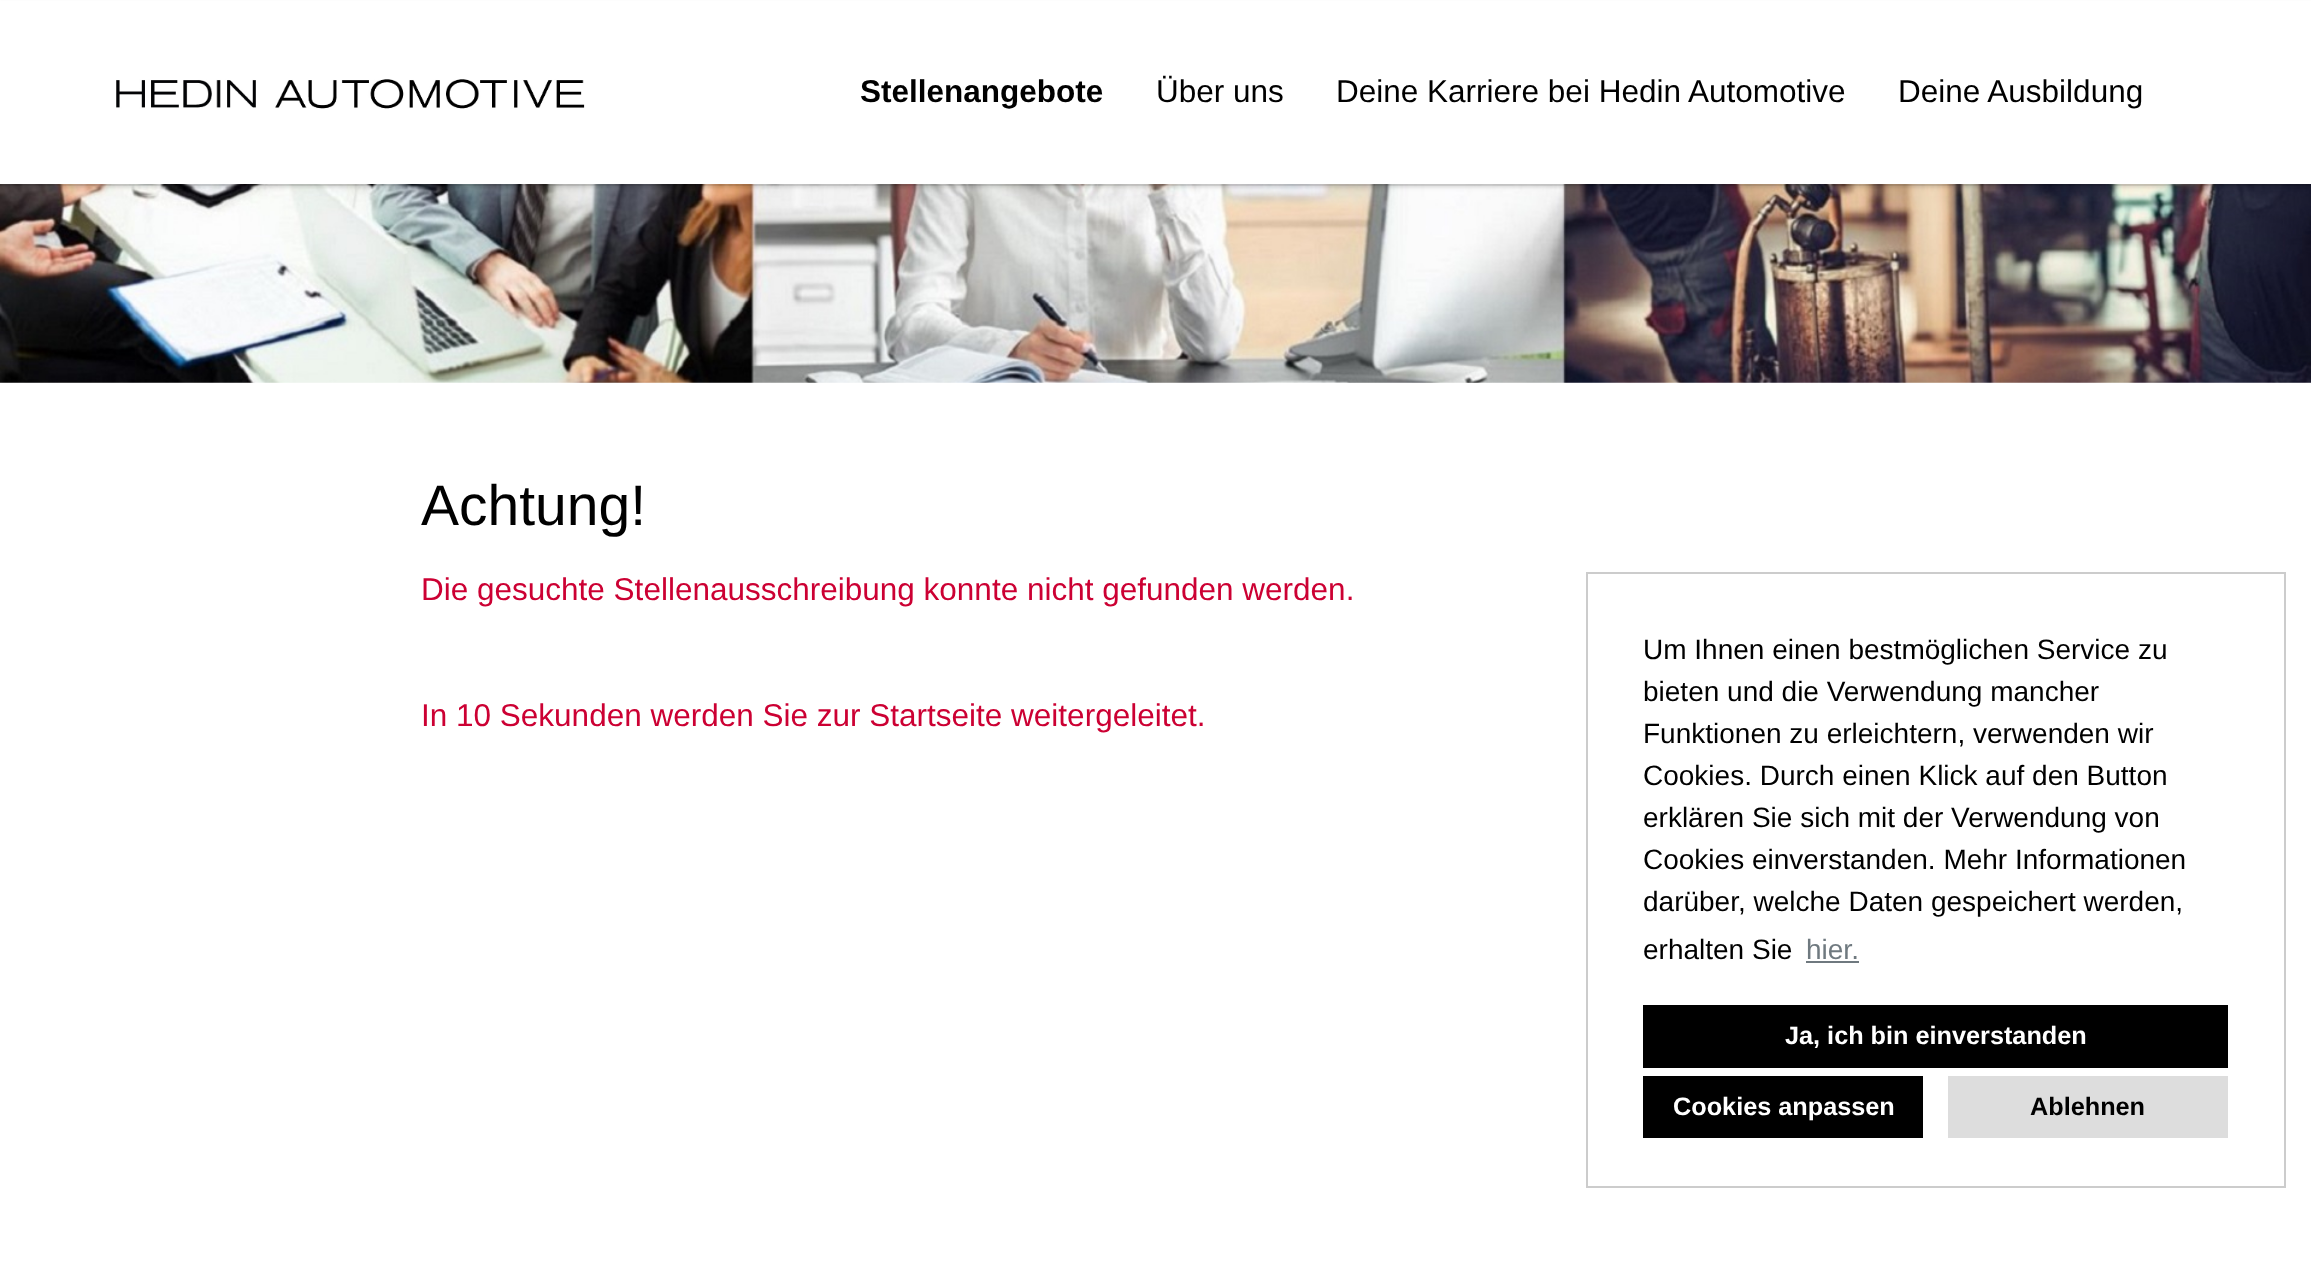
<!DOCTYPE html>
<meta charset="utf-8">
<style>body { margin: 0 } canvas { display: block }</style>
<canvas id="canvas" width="2311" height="1266"></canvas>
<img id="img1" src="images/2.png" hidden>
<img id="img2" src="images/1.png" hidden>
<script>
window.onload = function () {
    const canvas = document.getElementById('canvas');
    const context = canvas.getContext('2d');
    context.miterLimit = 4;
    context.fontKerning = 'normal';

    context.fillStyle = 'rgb(255, 255, 255)';
    context.fillRect(0, 0, 2311, 1266);
    context.drawImage(document.getElementById('img1'), 0, 184, 2311, 199);
    context.strokeStyle = 'rgba(0, 0, 0, 0.08)';
    context.lineWidth = 2;
    context.strokeRect(-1, -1, 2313, 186);
    context.fillStyle = 'rgba(0, 0, 0, 0.16)';
    context.filter = 'blur(2px)';
    context.beginPath();
    context.rect(0, 4, 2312, 183);
    context.fill();
    context.filter = 'none';
    context.fillStyle = 'rgb(255, 255, 255)';
    context.fillRect(0, 1, 2311, 183);
    context.drawImage(document.getElementById('img2'), 116, 79, 469, 30);
    context.strokeStyle = 'rgb(204, 204, 204)';
    context.strokeRect(1587, 573, 698, 614);
    context.fillStyle = 'rgb(111, 121, 127)';
    context.fillRect(1806, 961, 53, 2);
    context.fillStyle = 'rgb(0, 0, 0)';
    context.fillRect(1643, 1005, 585, 63);
    context.fillRect(1643, 1076, 280, 62);
    context.fillStyle = 'rgb(221, 221, 221)';
    context.fillRect(1948, 1076, 280, 62);
    context.font = 'bold 31.5px Liberation Sans';
    context.fillStyle = 'rgb(0, 0, 0)';
    context.fillText('Stellenangebote', 860, 102);
    context.font = '31.5px Liberation Sans';
    context.fillText('Über uns', 1156, 102);
    context.fillText('Deine Karriere bei Hedin Automotive', 1336, 102);
    context.fillText('Deine Ausbildung', 1898, 102);
    context.font = '57px Liberation Sans';
    context.fillText('Achtung!', 421, 525);
    context.font = '31.5px Liberation Sans';
    context.fillStyle = 'rgb(204, 0, 51)';
    context.fillText('Die gesuchte Stellenausschreibung konnte nicht gefunden werden.', 421, 600);
    context.fillText('In 10 Sekunden werden Sie zur Startseite weitergeleitet.', 421, 726);
    context.font = '28px Liberation Sans';
    context.fillStyle = 'rgb(0, 0, 0)';
    context.fillText('Um Ihnen einen bestmöglichen Service zu', 1643, 659);
    context.fillText('bieten und die Verwendung mancher', 1643, 701);
    context.fillText('Funktionen zu erleichtern, verwenden wir', 1643, 743);
    context.fillText('Cookies. Durch einen Klick auf den Button', 1643, 785);
    context.fillText('erklären Sie sich mit der Verwendung von', 1643, 827);
    context.fillText('Cookies einverstanden. Mehr Informationen', 1643, 869);
    context.fillText('darüber, welche Daten gespeichert werden,', 1643, 911);
    context.fillText('erhalten Sie', 1643, 959);
    context.fillStyle = 'rgb(111, 121, 127)';
    context.fillText('hier.', 1806, 959);
    context.font = 'bold 25.25px Liberation Sans';
    context.fillStyle = 'rgb(255, 255, 255)';
    context.fillText('Ja, ich bin einverstanden', 1785, 1044);
    context.fillText('Cookies anpassen', 1673, 1115);
    context.fillStyle = 'rgb(0, 0, 0)';
    context.fillText('Ablehnen', 2030, 1115);
};
</script>
